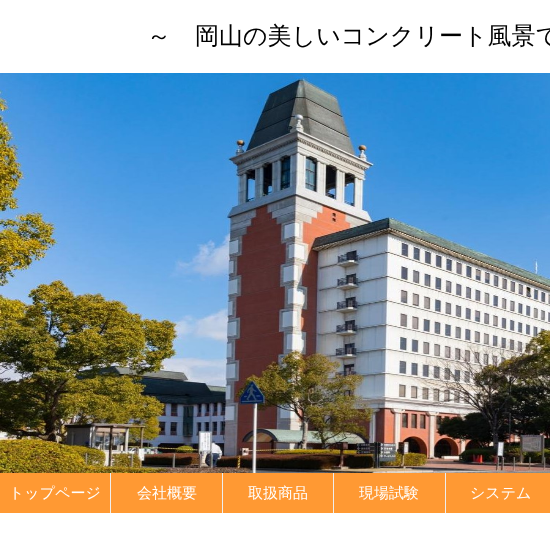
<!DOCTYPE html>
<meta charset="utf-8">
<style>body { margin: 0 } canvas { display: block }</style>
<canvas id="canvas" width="550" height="533"></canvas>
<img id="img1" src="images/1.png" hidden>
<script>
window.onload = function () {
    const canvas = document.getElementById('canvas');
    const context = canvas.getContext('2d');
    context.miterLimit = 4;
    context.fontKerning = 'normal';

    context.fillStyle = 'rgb(255, 255, 255)';
    context.fillRect(0, 0, 550, 533);
    context.drawImage(document.getElementById('img1'), 0, 73, 550, 400);
    context.fillStyle = 'rgb(255, 153, 51)';
    context.fillRect(0, 473, 110, 40);
    context.fillStyle = 'rgb(238, 238, 238)';
    context.fillRect(110, 473, 1, 40);
    context.fillStyle = 'rgb(255, 153, 51)';
    context.fillRect(111, 473, 111, 40);
    context.fillStyle = 'rgb(238, 238, 238)';
    context.fillRect(222, 473, 1, 40);
    context.fillStyle = 'rgb(255, 153, 51)';
    context.fillRect(223, 473, 110, 40);
    context.fillStyle = 'rgb(238, 238, 238)';
    context.fillRect(333, 473, 1, 40);
    context.fillStyle = 'rgb(255, 153, 51)';
    context.fillRect(334, 473, 111, 40);
    context.fillStyle = 'rgb(238, 238, 238)';
    context.fillRect(445, 473, 1, 40);
    context.fillStyle = 'rgb(255, 153, 51)';
    context.fillRect(446, 473, 104, 40);
    context.font = '500 24px WenQuanYi Zen Hei';
    context.fillStyle = 'rgb(0, 0, 0)';
    context.fillText('～　岡山の美しいコンクリート風景で', 147, 44);
    context.font = '500 15px WenQuanYi Zen Hei';
    context.fillStyle = 'rgb(255, 255, 255)';
    context.fillText('トップページ', 9, 498);
    context.fillText('会社概要', 137, 498);
    context.fillText('取扱商品', 248, 498);
    context.fillText('現場試験', 359, 498);
    context.fillText('システム', 470, 498);
};
</script>
